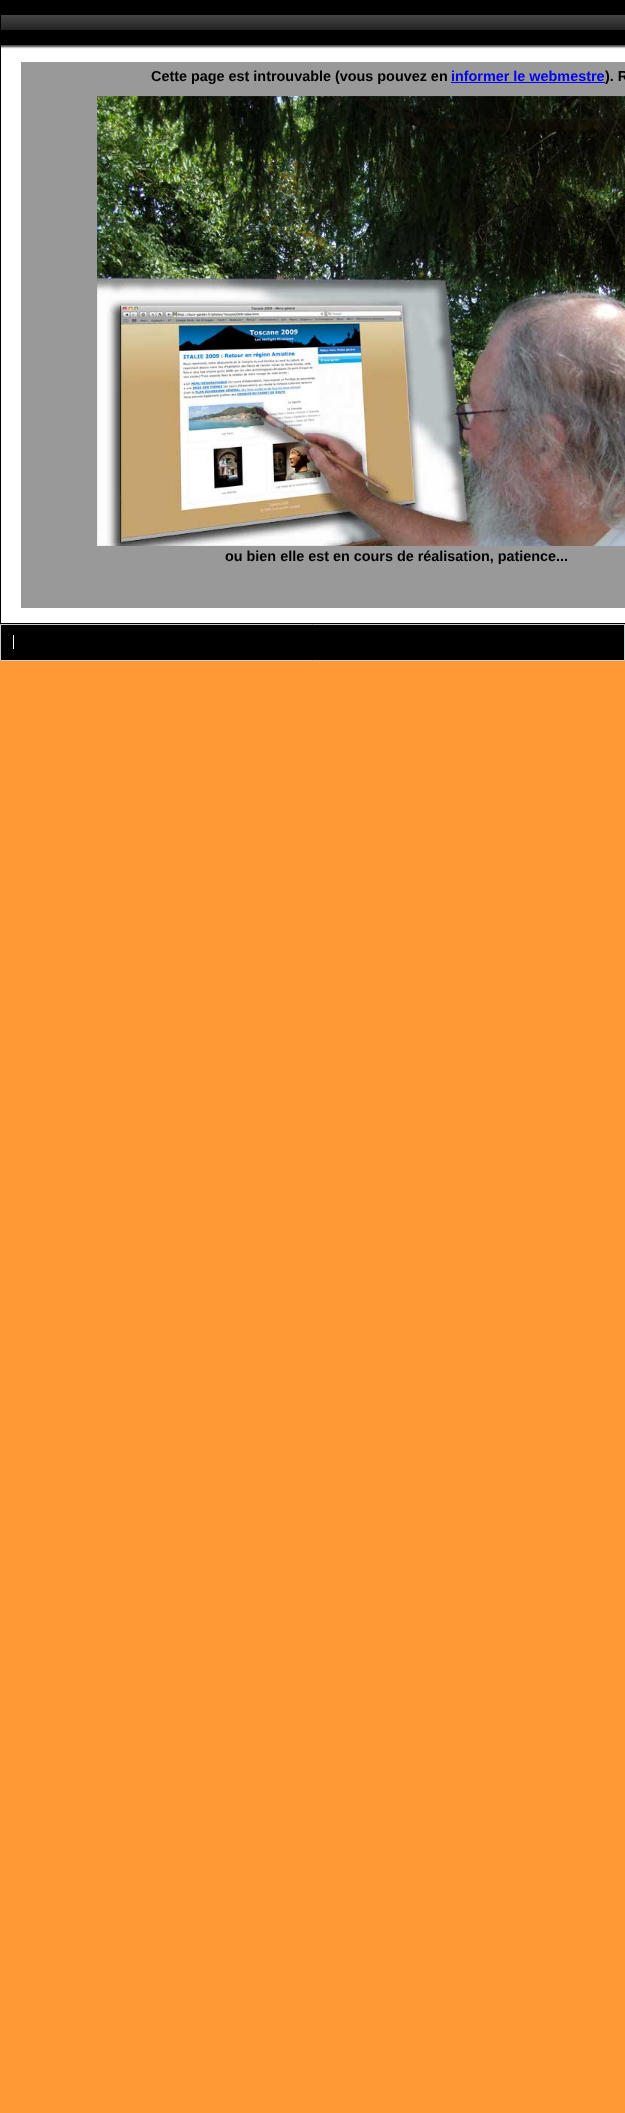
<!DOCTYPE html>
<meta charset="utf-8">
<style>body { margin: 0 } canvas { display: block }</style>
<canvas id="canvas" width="625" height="2113"></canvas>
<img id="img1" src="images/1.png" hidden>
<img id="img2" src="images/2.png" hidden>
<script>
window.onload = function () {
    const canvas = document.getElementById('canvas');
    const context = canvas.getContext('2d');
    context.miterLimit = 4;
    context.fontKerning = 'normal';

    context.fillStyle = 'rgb(255, 153, 51)';
    context.fillRect(0, 0, 625, 2113);
    context.fillStyle = 'rgb(255, 255, 255)';
    context.fillRect(1, 45, 624, 578);
    context.fillStyle = 'rgb(0, 0, 0)';
    context.fillRect(0, 623, 625, 1);
    context.fillRect(0, 0, 1, 624);
    context.fillRect(1, 0, 624, 15);
    context.drawImage(document.getElementById('img1'), 1, 15, 624, 34);
    context.strokeStyle = 'rgb(153, 153, 153)';
    context.strokeRect(21.5, 62.5, 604, 545);
    context.fillStyle = 'rgb(153, 153, 153)';
    context.fillRect(22, 63, 603, 544);
    context.fillStyle = 'rgb(0, 0, 238)';
    context.fillRect(451, 82, 154, 1);
    context.drawImage(document.getElementById('img2'), 97, 96, 528, 450);
    context.fillStyle = 'rgb(0, 0, 0)';
    context.beginPath();
    context.rect(0.5, 624.5, 624, 36);
    context.fill();
    context.strokeStyle = 'rgb(204, 204, 204)';
    context.stroke();
    context.fillStyle = 'rgb(255, 255, 255)';
    context.fillRect(13, 635, 1, 14);
    context.font = 'bold 14.4px Liberation Sans';
    context.fillStyle = 'rgb(0, 0, 0)';
    context.fillText('Cette page est introuvable (vous pouvez en', 151, 81);
    context.fillStyle = 'rgb(0, 0, 238)';
    context.fillText('informer le webmestre', 451, 81);
    context.fillStyle = 'rgb(0, 0, 0)';
    context.fillText('). R', 605, 81);
    context.fillText('ou bien elle est en cours de réalisation, patience...', 225, 561);
};
</script>
